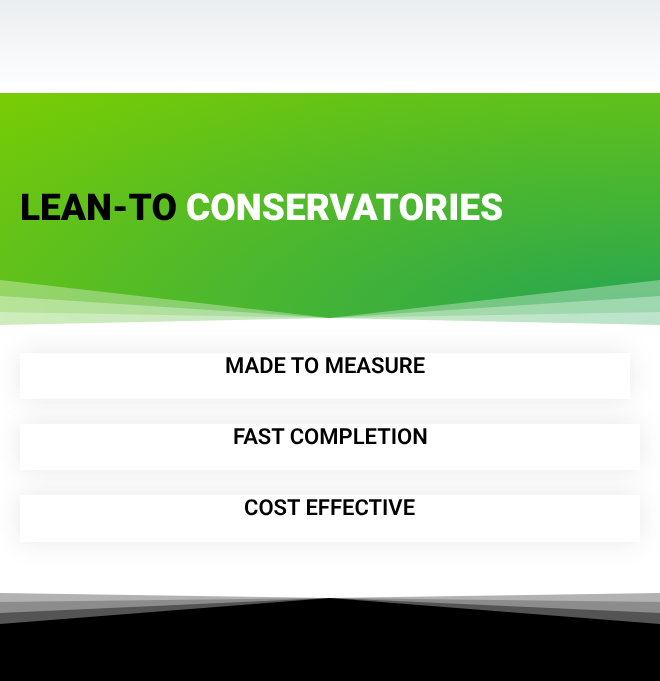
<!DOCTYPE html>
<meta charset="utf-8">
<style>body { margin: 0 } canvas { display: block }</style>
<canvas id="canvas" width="660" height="681"></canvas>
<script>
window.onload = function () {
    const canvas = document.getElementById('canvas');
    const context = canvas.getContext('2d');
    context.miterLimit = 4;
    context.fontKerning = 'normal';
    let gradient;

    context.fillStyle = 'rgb(255, 255, 255)';
    context.fillRect(0, 0, 660, 681);
    gradient = context.createLinearGradient(330, 0, 330, 93);
    gradient.addColorStop(0, 'rgb(235, 238, 240)');
    gradient.addColorStop(1, 'rgb(255, 255, 255)');
    context.fillStyle = gradient;
    context.fillRect(0, 0, 660, 81);
    gradient = context.createRadialGradient(660, 921.76, 0, 660, 921.76, 933);
    gradient.addColorStop(0, 'rgb(35, 164, 85)');
    gradient.addColorStop(1, 'rgb(122, 205, 3)');
    context.fillStyle = gradient;
    context.beginPath();
    context.rect(0, 93, 660, 232);
    context.save();
    context.clip();
    context.scale(1, 332 / 933);
    context.fillRect(0, 0, 660, 1914);
    context.restore();
    context.fillStyle = 'rgba(255, 255, 255, 0.33)';
    context.beginPath();
    context.moveTo(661, 328);
    context.lineTo(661, 280);
    context.lineTo(330, 318);
    context.lineTo(-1, 280);
    context.lineTo(-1, 328);
    context.closePath();
    context.fill();
    context.beginPath();
    context.moveTo(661, 328);
    context.lineTo(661, 296);
    context.lineTo(330, 318);
    context.lineTo(-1, 296);
    context.lineTo(-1, 328);
    context.closePath();
    context.fill();
    context.beginPath();
    context.moveTo(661, 328);
    context.lineTo(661, 312);
    context.lineTo(330, 318);
    context.lineTo(-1, 312);
    context.lineTo(-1, 328);
    context.closePath();
    context.fill();
    context.fillStyle = 'rgb(255, 255, 255)';
    context.beginPath();
    context.moveTo(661, 328);
    context.lineTo(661, 325);
    context.lineTo(330, 318);
    context.lineTo(-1, 325);
    context.lineTo(-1, 328);
    context.closePath();
    context.fill();
    context.save();
    context.beginPath();
    context.moveTo(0, 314);
    context.lineTo(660, 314);
    context.lineTo(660, 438);
    context.lineTo(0, 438);
    context.closePath();
    context.moveTo(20, 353);
    context.lineTo(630, 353);
    context.lineTo(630, 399);
    context.lineTo(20, 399);
    context.closePath();
    context.clip('evenodd');
    context.fillStyle = 'rgba(0, 0, 0, 0.09)';
    context.filter = 'blur(12.5px)';
    context.beginPath();
    context.rect(20, 353, 610, 46);
    context.fill();
    context.filter = 'none';
    context.restore();
    context.save();
    context.beginPath();
    context.moveTo(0, 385);
    context.lineTo(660, 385);
    context.lineTo(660, 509);
    context.lineTo(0, 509);
    context.closePath();
    context.moveTo(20, 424);
    context.lineTo(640, 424);
    context.lineTo(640, 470);
    context.lineTo(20, 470);
    context.closePath();
    context.clip('evenodd');
    context.fillStyle = 'rgba(0, 0, 0, 0.09)';
    context.filter = 'blur(12.5px)';
    context.beginPath();
    context.rect(20, 424, 620, 46);
    context.fill();
    context.filter = 'none';
    context.restore();
    context.save();
    context.beginPath();
    context.moveTo(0, 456);
    context.lineTo(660, 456);
    context.lineTo(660, 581);
    context.lineTo(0, 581);
    context.closePath();
    context.moveTo(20, 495);
    context.lineTo(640, 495);
    context.lineTo(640, 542);
    context.lineTo(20, 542);
    context.closePath();
    context.clip('evenodd');
    context.fillStyle = 'rgba(0, 0, 0, 0.09)';
    context.filter = 'blur(12.5px)';
    context.beginPath();
    context.rect(20, 495, 620, 47);
    context.fill();
    context.filter = 'none';
    context.restore();
    context.fillStyle = 'rgb(0, 0, 0)';
    context.fillRect(0, 593, 660, 88);
    context.fillStyle = 'rgba(255, 255, 255, 0.33)';
    context.beginPath();
    context.moveTo(-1, 591);
    context.lineTo(-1, 624);
    context.lineTo(330, 598);
    context.lineTo(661, 624);
    context.lineTo(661, 591);
    context.closePath();
    context.fill();
    context.beginPath();
    context.moveTo(-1, 591);
    context.lineTo(-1, 613);
    context.lineTo(330, 598);
    context.lineTo(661, 613);
    context.lineTo(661, 591);
    context.closePath();
    context.fill();
    context.beginPath();
    context.moveTo(-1, 591);
    context.lineTo(-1, 602);
    context.lineTo(330, 598);
    context.lineTo(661, 602);
    context.lineTo(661, 591);
    context.closePath();
    context.fill();
    context.fillStyle = 'rgb(255, 255, 255)';
    context.beginPath();
    context.moveTo(-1, 591);
    context.lineTo(-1, 593);
    context.lineTo(330, 598);
    context.lineTo(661, 593);
    context.lineTo(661, 591);
    context.closePath();
    context.fill();
    context.font = '900 37px Roboto';
    context.fillStyle = 'rgb(0, 0, 0)';
    context.fillText('LEAN-TO', 20, 220);
    context.fillStyle = 'rgb(255, 255, 255)';
    context.fillText('CONSERVATORIES', 186, 220);
    context.font = '600 22px Roboto';
    context.fillStyle = 'rgb(0, 0, 0)';
    context.fillText('MADE TO MEASURE', 225, 373);
    context.fillText('FAST COMPLETION', 233, 444);
    context.fillText('COST EFFECTIVE', 244, 515);
};
</script>
